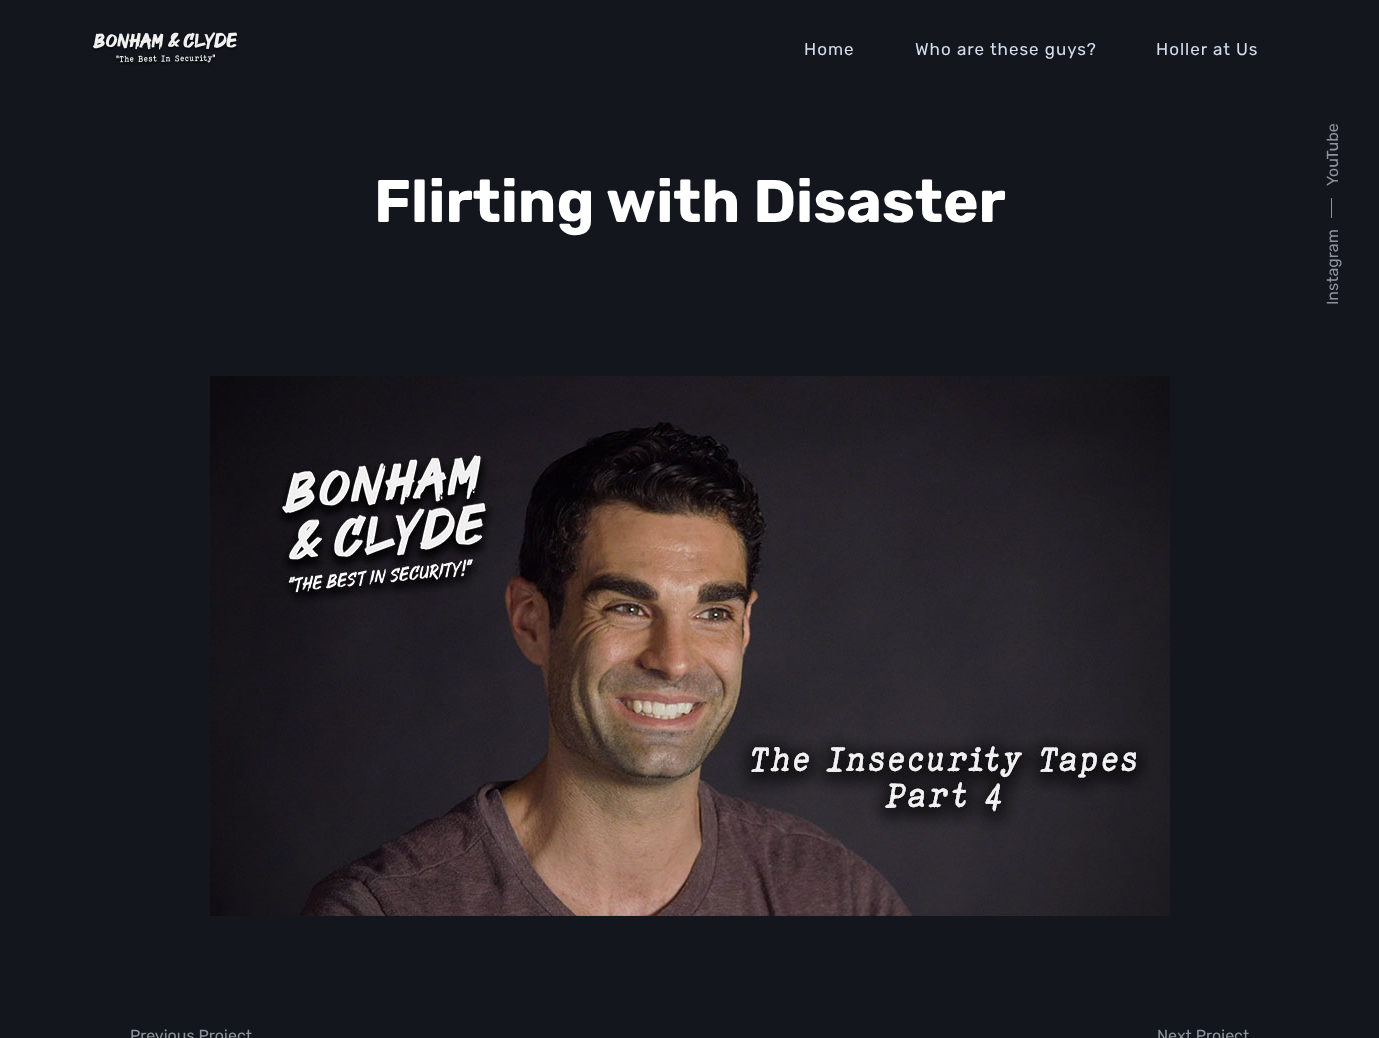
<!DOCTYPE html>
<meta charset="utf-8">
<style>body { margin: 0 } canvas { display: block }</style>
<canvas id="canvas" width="1379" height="1038"></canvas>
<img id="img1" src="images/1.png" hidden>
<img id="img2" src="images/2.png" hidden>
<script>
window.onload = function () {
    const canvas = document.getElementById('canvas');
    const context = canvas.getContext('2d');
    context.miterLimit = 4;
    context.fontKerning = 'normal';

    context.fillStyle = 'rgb(19, 23, 29)';
    context.fillRect(0, 0, 1379, 1038);
    context.drawImage(document.getElementById('img1'), 92, 32, 146, 33);
    context.fillStyle = 'rgb(141, 148, 158)';
    context.fillRect(1331, 198, 1, 20);
    context.drawImage(document.getElementById('img2'), 210, 376, 960, 540);
    context.letterSpacing = '1px';
    context.font = '17px Rubik';
    context.fillStyle = 'rgb(212, 222, 239)';
    context.fillText('Home', 804, 55);
    context.fillText('Who are these guys?', 915, 55);
    context.fillText('Holler at Us', 1156, 55);
    context.letterSpacing = '0px';
    context.font = 'bold 60px Rubik';
    context.fillStyle = 'rgb(255, 255, 255)';
    context.fillText('Flirting with Disaster', 374, 222);
    context.font = '16px Rubik';
    context.fillStyle = 'rgb(141, 148, 158)';
    context.save();
    context.translate(1338, 186);
    context.rotate(-90 * Math.PI / 180);
    context.fillText('YouTube', 0, 0);
    context.restore();
    context.save();
    context.translate(1338, 305);
    context.rotate(-90 * Math.PI / 180);
    context.fillText('Instagram', 0, 0);
    context.restore();
    context.fillText('Previous Project', 130, 1041);
    context.fillText('Next Project', 1157, 1041);
};
</script>
